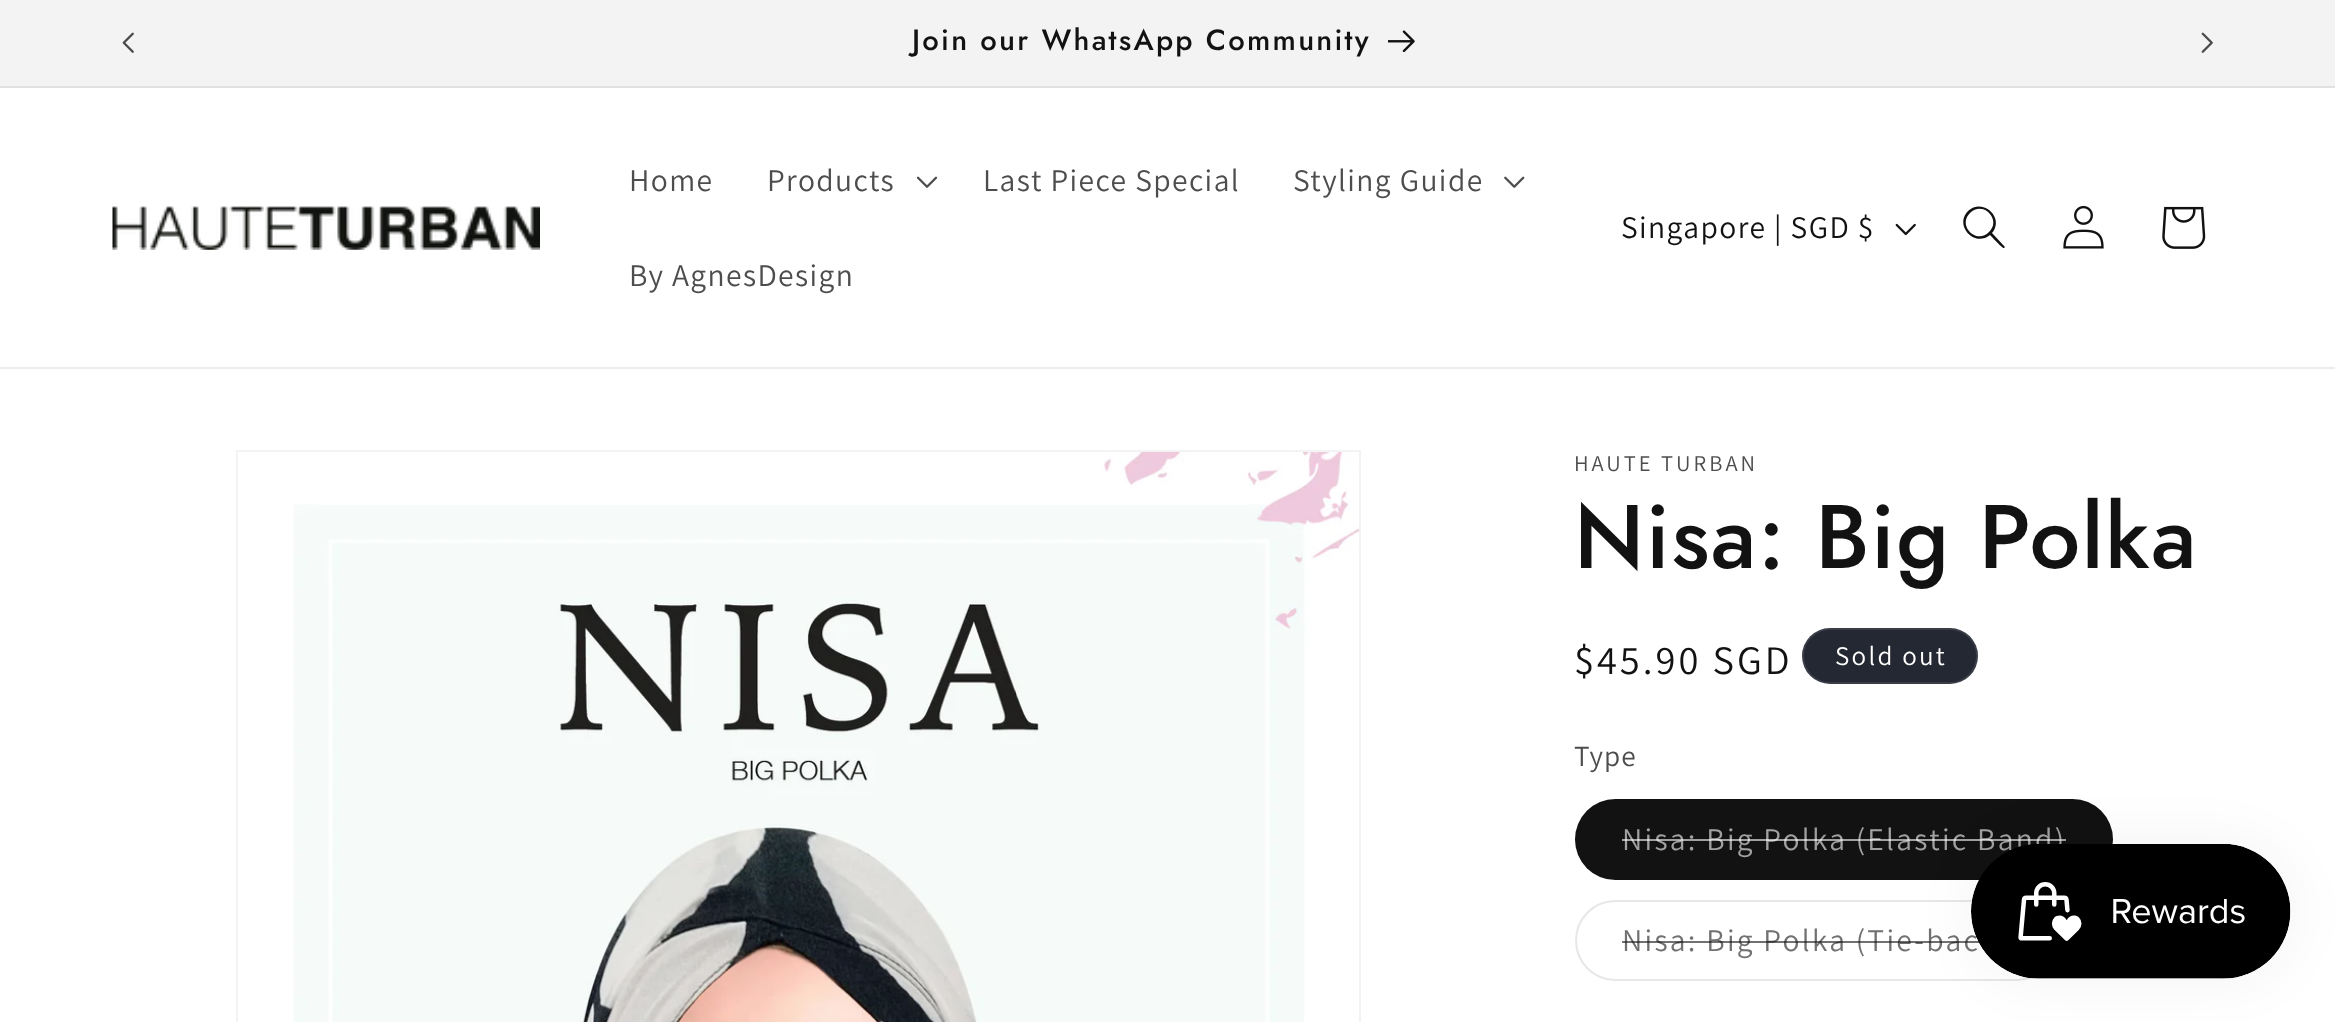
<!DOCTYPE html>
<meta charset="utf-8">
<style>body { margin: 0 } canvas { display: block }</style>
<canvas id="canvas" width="2335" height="1022"></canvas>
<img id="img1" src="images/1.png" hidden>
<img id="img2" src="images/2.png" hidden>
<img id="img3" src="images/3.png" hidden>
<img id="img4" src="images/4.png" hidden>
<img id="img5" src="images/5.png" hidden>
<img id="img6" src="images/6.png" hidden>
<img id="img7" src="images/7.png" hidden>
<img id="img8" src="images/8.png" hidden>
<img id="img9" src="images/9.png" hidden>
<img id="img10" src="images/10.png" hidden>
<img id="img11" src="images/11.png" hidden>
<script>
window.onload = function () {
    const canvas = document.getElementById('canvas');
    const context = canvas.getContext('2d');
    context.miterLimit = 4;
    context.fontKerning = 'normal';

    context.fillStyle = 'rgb(255, 255, 255)';
    context.fillRect(0, 0, 2335, 1022);
    context.fillStyle = 'rgb(243, 243, 243)';
    context.fillRect(0, 0, 2335, 86);
    context.fillStyle = 'rgb(225, 225, 225)';
    context.fillRect(0, 86, 2335, 2);
    context.drawImage(document.getElementById('img1'), 122, 32, 12, 21);
    context.drawImage(document.getElementById('img2'), 1388, 30, 27, 22);
    context.drawImage(document.getElementById('img3'), 2201, 32, 12, 21);
    context.fillStyle = 'rgb(236, 236, 236)';
    context.fillRect(0, 367, 2335, 2);
    context.drawImage(document.getElementById('img4'), 112, 206, 428, 44);
    context.drawImage(document.getElementById('img5'), 916, 176, 22, 12);
    context.drawImage(document.getElementById('img6'), 1504, 176, 21, 12);
    context.drawImage(document.getElementById('img7'), 1895, 223, 21, 13);
    context.fillStyle = 'rgb(18, 18, 18)';
    context.beginPath();
    context.moveTo(1989, 232);
    context.bezierCurveTo(1977, 245, 1957, 226, 1970, 213);
    context.bezierCurveTo(1983, 200, 2002, 220, 1989, 232);
    context.closePath();
    context.moveTo(1990, 235);
    context.bezierCurveTo(1974, 248, 1954, 225, 1968, 211);
    context.bezierCurveTo(1983, 197, 2005, 218, 1992, 233);
    context.lineTo(2005, 247);
    context.lineTo(2004, 248);
    context.bezierCurveTo(2003, 249, 1992, 237, 1990, 235);
    context.closePath();
    context.fill('evenodd');
    context.drawImage(document.getElementById('img8'), 2063, 205, 41, 44);
    context.drawImage(document.getElementById('img9'), 2162, 206, 44, 43);
    context.strokeStyle = 'rgb(243, 243, 243)';
    context.lineWidth = 2;
    context.strokeRect(237, 451, 1123, 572);
    context.drawImage(document.getElementById('img10'), 293, 452, 1066, 570);
    context.fillStyle = 'rgb(36, 40, 51)';
    context.beginPath();
    context.roundRect(1802, 628, 176, 56, 28);
    context.fill();
    context.beginPath();
    context.roundRect(1803, 629, 174, 54, 27);
    context.strokeStyle = 'rgba(255, 255, 255, 0.1)';
    context.stroke();
    context.fillStyle = 'rgb(18, 18, 18)';
    context.beginPath();
    context.roundRect(1575, 799, 538, 81, 40.5);
    context.fill();
    context.beginPath();
    context.roundRect(1576, 800, 536, 79, 39.5);
    context.strokeStyle = 'rgba(18, 18, 18, 0.1)';
    context.stroke();
    context.beginPath();
    context.roundRect(1576, 901, 480, 79, 39.5);
    context.strokeStyle = 'rgb(231, 231, 231)';
    context.stroke();
    context.letterSpacing = '2.25px';
    context.font = '500 29.25px Jost';
    context.fillText('Join our WhatsApp Community', 912, 50);
    context.letterSpacing = '1.4px';
    context.font = '31.5px Assistant';
    context.fillStyle = 'rgb(77, 77, 77)';
    context.fillText('Home', 629, 191);
    context.fillText('Products', 767, 191);
    context.fillText('Last Piece Special', 983, 191);
    context.fillText('Styling Guide', 1293, 191);
    context.fillText('By AgnesDesign', 629, 286);
    context.fillStyle = 'rgb(18, 18, 18)';
    context.fillText('Singapore | SGD $', 1621, 238);
    context.letterSpacing = '3px';
    context.font = '22.5px Assistant';
    context.fillStyle = 'rgb(77, 77, 77)';
    context.fillText('HAUTE TURBAN', 1574, 471);
    context.letterSpacing = '1.4px';
    context.font = '500 90px Jost';
    context.fillStyle = 'rgb(18, 18, 18)';
    context.fillText('Nisa: Big Polka', 1574, 568);
    context.letterSpacing = '3px';
    context.font = '40.5px Assistant';
    context.fillText('$45.90 SGD', 1574, 674);
    context.letterSpacing = '2.25px';
    context.font = '27px Assistant';
    context.fillStyle = 'rgb(255, 255, 255)';
    context.fillText('Sold out', 1835, 665);
    context.letterSpacing = '1px';
    context.font = '29.25px Assistant';
    context.fillStyle = 'rgb(77, 77, 77)';
    context.fillText('Type', 1574, 766);
    context.letterSpacing = '2.25px';
    context.font = '31.5px Assistant';
    context.fillStyle = 'rgb(160, 160, 160)';
    context.fillText('Nisa: Big Polka (Elastic Band)', 1622, 850);
    context.fillStyle = 'rgba(255, 255, 255, 0.6)';
    context.fillRect(1622, 839, 444, 2);
    context.fillStyle = 'rgb(113, 113, 113)';
    context.fillText('Nisa: Big Polka (Tie-bac', 1622, 951);
    context.fillStyle = 'rgba(18, 18, 18, 0.6)';
    context.fillRect(1622, 941, 357, 2);
    context.fillStyle = 'rgba(0, 0, 0, 0.05)';
    context.filter = 'blur(28px)';
    context.beginPath();
    context.roundRect(1971, 844, 320, 135, 67.5);
    context.fill();
    context.filter = 'none';
    context.drawImage(document.getElementById('img11'), 1971, 844, 320, 135);
};
</script>
